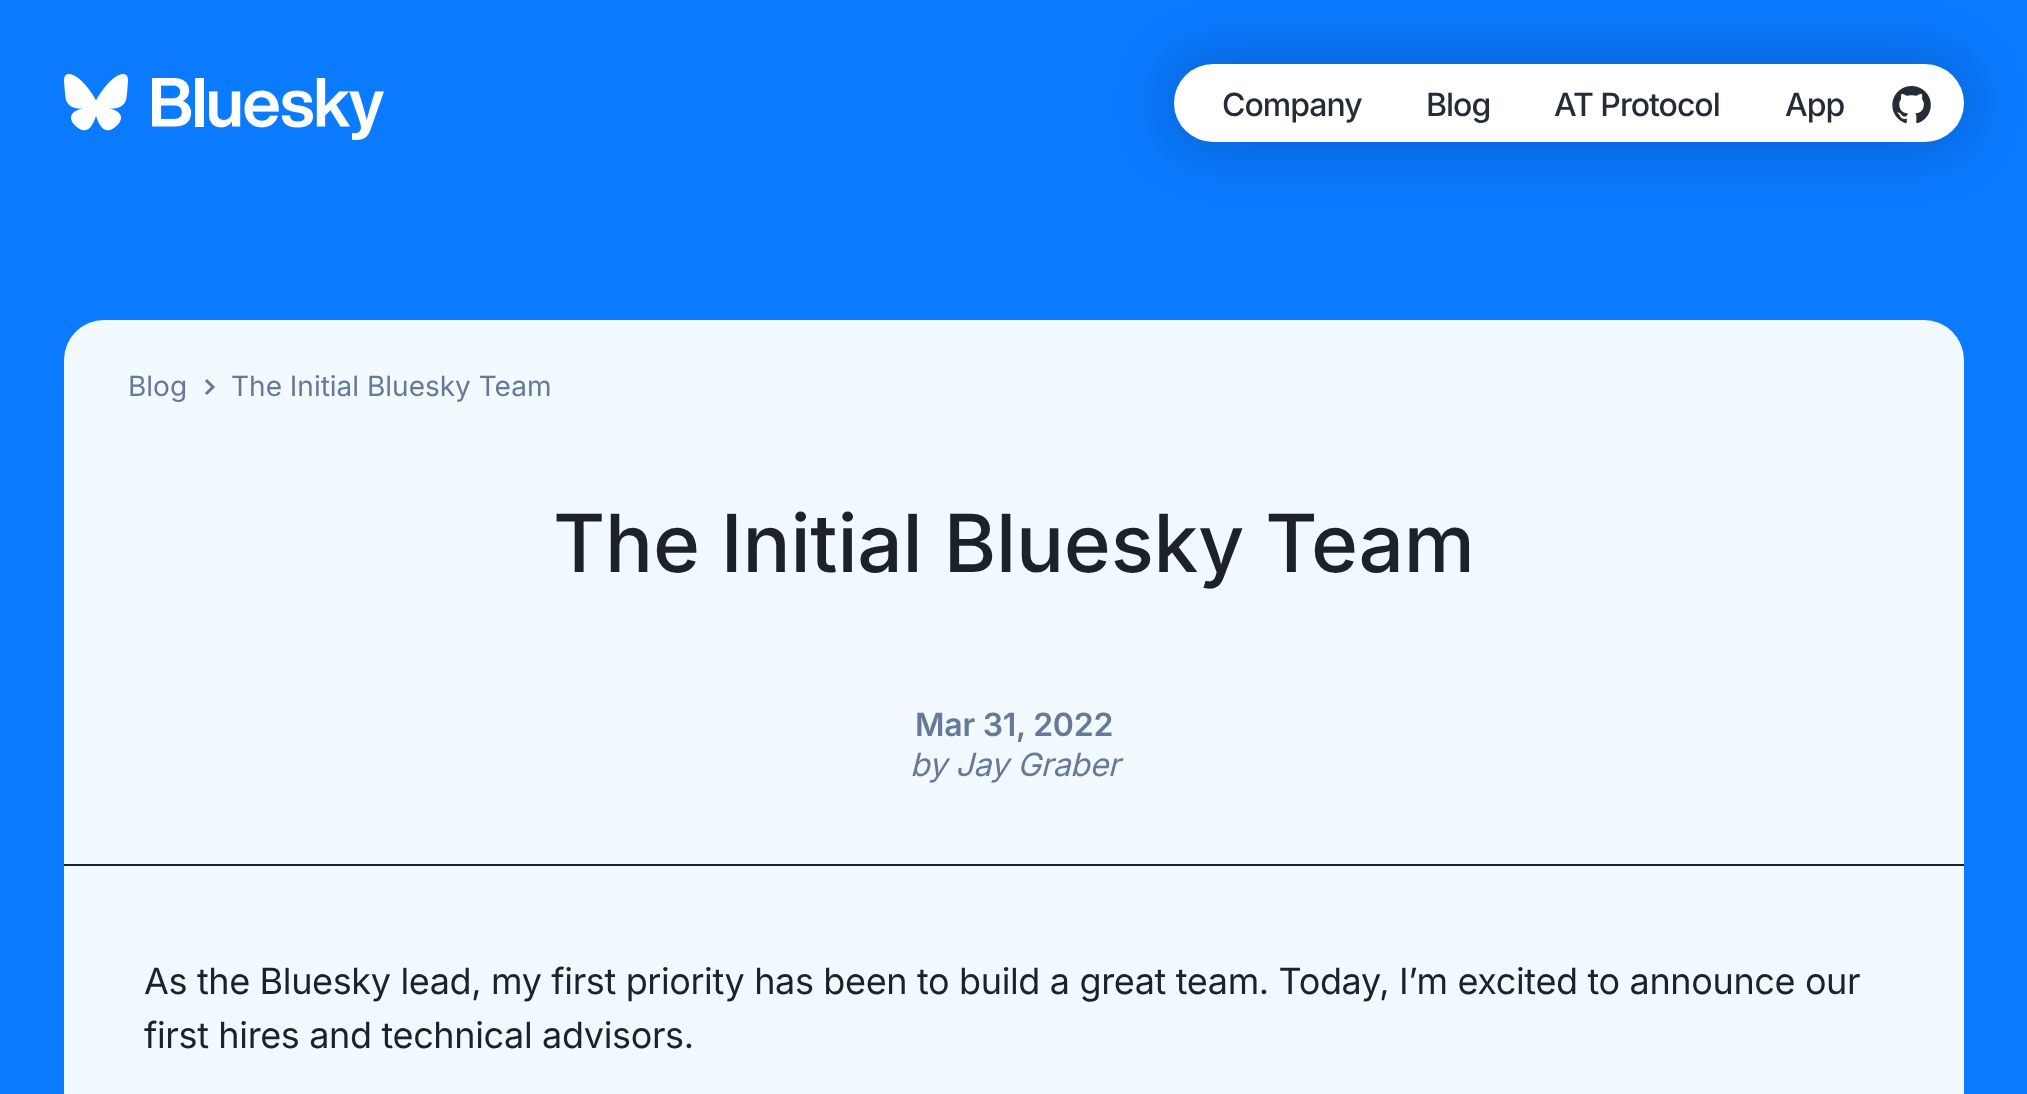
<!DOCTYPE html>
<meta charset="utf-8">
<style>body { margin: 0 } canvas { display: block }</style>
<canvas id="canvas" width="2027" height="1094"></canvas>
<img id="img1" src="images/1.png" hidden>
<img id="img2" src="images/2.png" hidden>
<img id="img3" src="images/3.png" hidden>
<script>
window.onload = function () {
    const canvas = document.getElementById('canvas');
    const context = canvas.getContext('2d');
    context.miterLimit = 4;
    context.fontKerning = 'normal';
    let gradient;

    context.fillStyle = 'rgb(255, 255, 255)';
    context.fillRect(0, 0, 2027, 1094);
    gradient = context.createLinearGradient(1014, 0, 1014, 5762);
    gradient.addColorStop(0.4, 'rgb(10, 122, 255)');
    gradient.addColorStop(1, 'rgb(89, 185, 255)');
    context.fillStyle = gradient;
    context.fillRect(0, 0, 2027, 1094);
    context.drawImage(document.getElementById('img1'), 64, 74, 64, 57);
    context.drawImage(document.getElementById('img2'), 152, 78, 232, 62);
    context.fillStyle = 'rgba(0, 0, 0, 0.25)';
    context.filter = 'blur(30px)';
    context.beginPath();
    context.roundRect(1174, 64, 790, 78, 39);
    context.fill();
    context.filter = 'none';
    context.fillStyle = 'rgb(255, 255, 255)';
    context.beginPath();
    context.roundRect(1174, 64, 790, 78, 39);
    context.fill();
    context.drawImage(document.getElementById('img3'), 1892, 86, 39, 38);
    context.fillStyle = 'rgb(242, 249, 255)';
    context.beginPath();
    context.roundRect(64, 320, 1900, 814, 40);
    context.fill();
    context.fillStyle = 'rgb(28, 34, 40)';
    context.fillRect(64, 864, 1900, 2);
    context.beginPath();
    context.moveTo(207, 393);
    context.lineTo(213, 387);
    context.lineTo(207, 381);
    context.strokeStyle = 'rgb(102, 121, 153)';
    context.lineWidth = 3;
    context.lineCap = 'square';
    context.stroke();
    context.letterSpacing = '-1px';
    context.font = '500 32px "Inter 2"';
    context.fillStyle = 'rgb(37, 43, 55)';
    context.fillText('Company', 1222, 116);
    context.fillText('Blog', 1426, 116);
    context.fillText('AT Protocol', 1554, 116);
    context.fillText('App', 1785, 116);
    context.letterSpacing = '0px';
    context.font = '28px Inter';
    context.fillStyle = 'rgb(102, 121, 153)';
    context.fillText('Blog', 128, 396);
    context.fillText('The Initial Bluesky Team', 231, 396);
    context.letterSpacing = '-0.2px';
    context.font = '500 80px Inter';
    context.fillStyle = 'rgb(28, 34, 40)';
    context.fillText('The Initial Bluesky Team', 553, 572);
    context.letterSpacing = '-0.25px';
    context.font = '600 32px Inter';
    context.fillStyle = 'rgb(102, 121, 153)';
    context.fillText('Mar 31, 2022', 915, 736);
    context.font = 'italic 32px Inter';
    context.fillText('by Jay Graber', 910, 776);
    context.letterSpacing = '-0.36px';
    context.font = '36px Inter';
    context.fillStyle = 'rgb(28, 34, 40)';
    context.fillText('As the Bluesky lead, my first priority has been to build a great team. Today, I’m excited to announce our', 144, 994);
    context.fillText('first hires and technical advisors.', 144, 1048);
};
</script>
